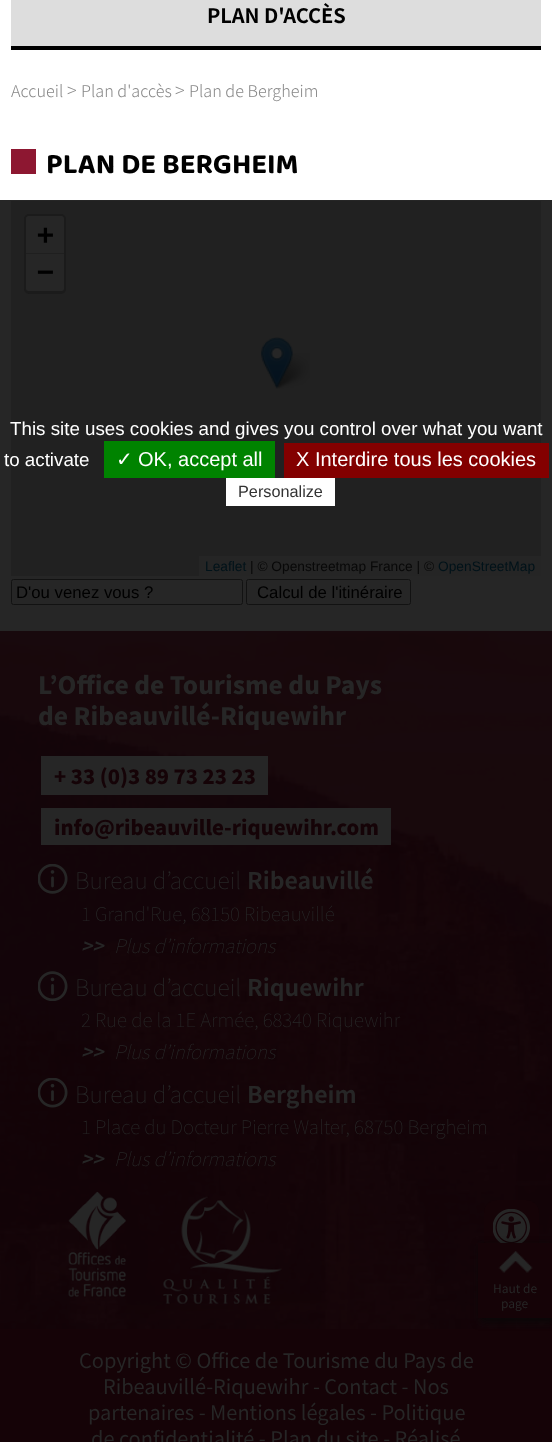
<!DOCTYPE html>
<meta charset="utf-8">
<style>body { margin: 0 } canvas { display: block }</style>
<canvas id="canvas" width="552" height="1442"></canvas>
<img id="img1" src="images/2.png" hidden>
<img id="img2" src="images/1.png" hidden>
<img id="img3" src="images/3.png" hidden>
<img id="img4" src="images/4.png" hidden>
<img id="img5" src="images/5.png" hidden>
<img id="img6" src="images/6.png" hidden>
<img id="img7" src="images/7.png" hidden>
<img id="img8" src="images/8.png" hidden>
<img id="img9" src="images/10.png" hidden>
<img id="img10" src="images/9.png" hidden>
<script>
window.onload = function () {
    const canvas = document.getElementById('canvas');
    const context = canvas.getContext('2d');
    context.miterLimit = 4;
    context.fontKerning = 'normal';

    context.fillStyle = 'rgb(255, 255, 255)';
    context.fillRect(0, 0, 552, 1442);
    context.fillStyle = 'rgb(38, 38, 38)';
    context.fillRect(0, 200, 552, 431);
    context.fillStyle = 'rgb(221, 221, 221)';
    context.fillRect(11, 0, 530, 46);
    context.fillStyle = 'rgb(0, 0, 0)';
    context.fillRect(11, 46, 530, 4);
    context.fillStyle = 'rgb(141, 23, 49)';
    context.fillRect(11, 149, 25, 25);
    context.fillStyle = 'rgb(33, 33, 33)';
    context.fillRect(11, 201, 530, 375);
    context.beginPath();
    context.roundRect(25.5, 215.5, 39, 77, 3.5);
    context.strokeStyle = 'rgb(27, 27, 27)';
    context.lineWidth = 3;
    context.stroke();
    context.fillStyle = 'rgb(38, 38, 38)';
    context.beginPath();
    context.roundRect(26, 216, 38, 38, [2.5, 2.5, 0, 0]);
    context.fill();
    context.fillStyle = 'rgb(31, 31, 31)';
    context.fillRect(26, 253, 38, 1);
    context.fillStyle = 'rgb(38, 38, 38)';
    context.beginPath();
    context.roundRect(26, 254, 38, 37, [0, 0, 2.5, 2.5]);
    context.fill();
    context.fillStyle = 'rgb(37, 37, 37)';
    context.fillRect(199, 556, 342, 20);
    context.drawImage(document.getElementById('img1'), 272, 353, 38, 36);
    context.drawImage(document.getElementById('img2'), 261, 337, 32, 52);
    context.beginPath();
    context.roundRect(11.5, 579.5, 231, 25, 2);
    context.strokeStyle = 'rgb(18, 18, 18)';
    context.lineWidth = 1;
    context.stroke();
    context.beginPath();
    context.roundRect(246.5, 579.5, 164, 25, 2);
    context.stroke();
    context.drawImage(document.getElementById('img3'), 0, 630, 552, 699);
    context.fillStyle = 'rgba(21, 3, 7, 0.8)';
    context.fillRect(0, 631, 552, 698);
    context.fillStyle = 'rgb(38, 38, 38)';
    context.fillRect(41, 756, 227, 39);
    context.fillRect(41, 808, 350, 37);
    context.drawImage(document.getElementById('img4'), 38, 864, 30, 30);
    context.drawImage(document.getElementById('img5'), 38, 971, 30, 30);
    context.drawImage(document.getElementById('img6'), 38, 1078, 30, 30);
    context.drawImage(document.getElementById('img7'), 68, 1191, 58, 107);
    context.drawImage(document.getElementById('img8'), 162, 1196, 120, 109);
    context.fillStyle = 'rgb(21, 3, 7)';
    context.fillRect(0, 1329, 552, 113);
    context.beginPath();
    context.roundRect(484, 1200, 55, 55, 13);
    context.fill();
    context.drawImage(document.getElementById('img9'), 493, 1209, 37, 34);
    context.fillStyle = 'rgb(8, 8, 8)';
    context.filter = 'blur(4.5px)';
    context.beginPath();
    context.rect(480, 1246, 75, 75);
    context.fill();
    context.filter = 'none';
    context.fillStyle = 'rgb(21, 3, 7)';
    context.fillRect(478, 1243, 74, 75);
    context.drawImage(document.getElementById('img10'), 498, 1251, 35, 22);
    context.fillStyle = 'rgb(0, 131, 0)';
    context.fillRect(104, 441, 171, 37);
    context.fillStyle = 'rgb(131, 0, 0)';
    context.fillRect(284, 443, 265, 35);
    context.fillStyle = 'rgb(255, 255, 255)';
    context.fillRect(226, 478, 109, 28);
    context.font = 'bold 20px Noto Sans JP';
    context.fillStyle = 'rgb(0, 0, 0)';
    context.fillText('PLAN D\'ACCÈS', 207, 23);
    context.font = '300 16.25px Noto Sans JP';
    context.fillStyle = 'rgb(136, 136, 136)';
    context.fillText('Accueil', 11, 97);
    context.font = '300 18px Noto Sans JP';
    context.fillText('>', 67, 97);
    context.font = '300 16.25px Noto Sans JP';
    context.fillText('Plan d\'accès', 81, 97);
    context.font = '300 18px Noto Sans JP';
    context.fillText('>', 175, 97);
    context.font = '300 16.25px Noto Sans JP';
    context.fillText('Plan de Bergheim', 189, 97);
    context.font = 'bold 29px "Baloo Chettan 2"';
    context.fillStyle = 'rgb(0, 0, 0)';
    context.fillText('PLAN DE BERGHEIM', 46, 173);
    context.font = 'bold 28px DejaVu Sans Mono';
    context.fillText('+', 37, 244);
    context.fillText('−', 37, 281);
    context.font = '13.75px Liberation Sans';
    context.fillStyle = 'rgb(0, 18, 25)';
    context.fillText('Leaflet', 205, 571);
    context.fillStyle = 'rgb(8, 8, 8)';
    context.fillText('| © Openstreetmap France | ©', 250, 571);
    context.fillStyle = 'rgb(0, 18, 25)';
    context.fillText('OpenStreetMap', 438, 571);
    context.font = '16.75px Liberation Sans';
    context.fillStyle = 'rgb(0, 0, 0)';
    context.fillText('D\'ou venez vous ?', 16, 598);
    context.fillText('Calcul de l\'itinéraire', 257, 598);
    context.font = '900 24px Noto Sans JP';
    context.fillStyle = 'rgb(38, 38, 38)';
    context.fillText('L’Office de Tourisme du Pays', 38, 694);
    context.fillText('de Ribeauvillé-Riquewihr', 38, 725);
    context.font = '900 20px Noto Sans JP';
    context.fillStyle = 'rgb(21, 3, 7)';
    context.fillText('+ 33 (0)3 89 73 23 23', 54, 784);
    context.fillText('info@ribeauville-riquewihr.com', 54, 835);
    context.font = '100 23px Noto Sans JP';
    context.fillStyle = 'rgb(38, 38, 38)';
    context.fillText('Bureau d’accueil', 75, 889);
    context.font = 'bold 23px Noto Sans JP';
    context.fillText('Ribeauvillé', 247, 889);
    context.font = '100 18.9px Noto Sans JP';
    context.fillText('1 Grand\'Rue, 68150 Ribeauvillé', 81, 921);
    context.font = 'italic bold 18.9px Noto Sans JP';
    context.fillText('>>', 81, 953);
    context.font = 'italic 100 18.9px Noto Sans JP';
    context.fillText('Plus d’informations', 114, 953);
    context.font = '100 23px Noto Sans JP';
    context.fillText('Bureau d’accueil', 75, 996);
    context.font = 'bold 23px Noto Sans JP';
    context.fillText('Riquewihr', 247, 996);
    context.font = '100 18.9px Noto Sans JP';
    context.fillText('2 Rue de la 1E Armée, 68340 Riquewihr', 81, 1027);
    context.font = 'italic bold 18.9px Noto Sans JP';
    context.fillText('>>', 81, 1059);
    context.font = 'italic 100 18.9px Noto Sans JP';
    context.fillText('Plus d’informations', 114, 1059);
    context.font = '100 23px Noto Sans JP';
    context.fillText('Bureau d’accueil', 75, 1103);
    context.font = 'bold 23px Noto Sans JP';
    context.fillText('Bergheim', 247, 1103);
    context.font = '100 18.9px Noto Sans JP';
    context.fillText('1 Place du Docteur Pierre Walter, 68750 Bergheim', 81, 1134);
    context.font = 'italic bold 18.9px Noto Sans JP';
    context.fillText('>>', 81, 1166);
    context.font = 'italic 100 18.9px Noto Sans JP';
    context.fillText('Plus d’informations', 114, 1166);
    context.font = '20px Noto Sans JP';
    context.fillText('Copyright © Office de Tourisme du Pays de', 79, 1368);
    context.fillText('Ribeauvillé-Riquewihr - Contact - Nos', 103, 1394);
    context.fillText('partenaires - Mentions légales - Politique', 88, 1420);
    context.fillText('de confidentialité - Plan du site - Réalisé', 91, 1446);
    context.font = '12px Noto Sans JP';
    context.fillText('Haut de', 493, 1293);
    context.fillText('page', 501, 1308);
    context.font = '18.75px Liberation Sans';
    context.fillStyle = 'rgb(255, 255, 255)';
    context.fillText('This site uses cookies and gives you control over what you want', 10, 435);
    context.fillText('to activate', 4, 466);
    context.font = '20px DejaVu Sans';
    context.fillText('✓', 116, 466);
    context.font = '20px Liberation Sans';
    context.fillText('OK, accept all', 138, 466);
    context.fillText('X Interdire tous les cookies', 296, 466);
    context.font = '16.25px Liberation Sans';
    context.fillStyle = 'rgb(51, 51, 51)';
    context.fillText('Personalize', 238, 497);
};
</script>
